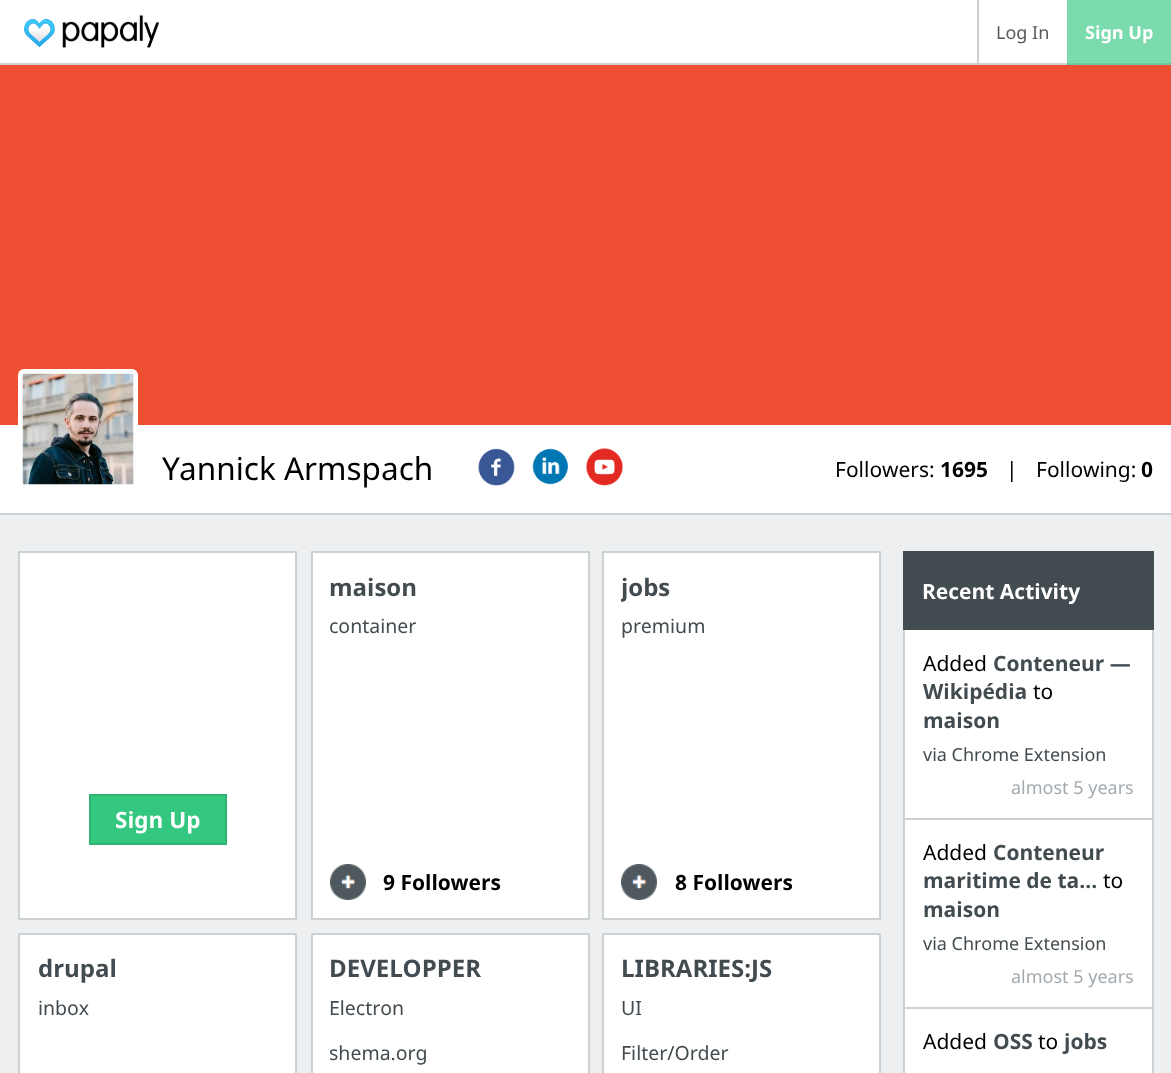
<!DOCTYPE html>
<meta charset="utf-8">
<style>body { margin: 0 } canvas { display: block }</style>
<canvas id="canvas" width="1171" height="1073"></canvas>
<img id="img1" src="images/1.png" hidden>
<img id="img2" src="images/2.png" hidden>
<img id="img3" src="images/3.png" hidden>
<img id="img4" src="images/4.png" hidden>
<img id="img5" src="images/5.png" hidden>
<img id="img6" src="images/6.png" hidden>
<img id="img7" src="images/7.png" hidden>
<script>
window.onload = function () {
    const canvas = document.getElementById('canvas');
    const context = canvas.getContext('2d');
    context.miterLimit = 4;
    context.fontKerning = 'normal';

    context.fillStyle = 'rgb(237, 239, 240)';
    context.fillRect(0, 0, 1171, 1073);
    context.fillStyle = 'rgb(255, 255, 255)';
    context.fillRect(0, 0, 1067, 63);
    context.fillStyle = 'rgb(123, 219, 172)';
    context.fillRect(1067, 0, 104, 63);
    context.fillStyle = 'rgb(204, 209, 212)';
    context.fillRect(0, 63, 1067, 2);
    context.fillStyle = 'rgb(105, 203, 157)';
    context.fillRect(1067, 63, 104, 2);
    context.drawImage(document.getElementById('img1'), 24, 15, 135, 33);
    context.fillStyle = 'rgb(204, 209, 212)';
    context.fillRect(977, 0, 2, 63);
    context.fillStyle = 'rgb(238, 78, 50)';
    context.fillRect(0, 65, 1171, 360);
    context.fillStyle = 'rgb(255, 255, 255)';
    context.fillRect(0, 425, 1171, 88);
    context.fillStyle = 'rgb(204, 209, 212)';
    context.fillRect(0, 513, 1171, 2);
    context.beginPath();
    context.roundRect(20.5, 371.5, 115, 115, 3.5);
    context.strokeStyle = 'rgb(255, 255, 255)';
    context.lineWidth = 5;
    context.stroke();
    context.drawImage(document.getElementById('img2'), 22, 373, 112, 112);
    context.drawImage(document.getElementById('img3'), 478, 448, 37, 38);
    context.drawImage(document.getElementById('img4'), 532, 448, 37, 37);
    context.drawImage(document.getElementById('img5'), 586, 448, 37, 38);
    context.fillStyle = 'rgb(255, 255, 255)';
    context.beginPath();
    context.rect(19, 552, 277, 367);
    context.fill();
    context.strokeStyle = 'rgb(204, 209, 212)';
    context.lineWidth = 2;
    context.stroke();
    context.fillStyle = 'rgb(52, 199, 128)';
    context.beginPath();
    context.rect(90, 795, 136, 49);
    context.fill();
    context.strokeStyle = 'rgb(47, 179, 115)';
    context.stroke();
    context.fillStyle = 'rgb(255, 255, 255)';
    context.beginPath();
    context.rect(312, 552, 277, 367);
    context.fill();
    context.strokeStyle = 'rgb(204, 209, 212)';
    context.stroke();
    context.drawImage(document.getElementById('img6'), 330, 864, 36, 36);
    context.beginPath();
    context.rect(603, 552, 277, 367);
    context.fill();
    context.stroke();
    context.drawImage(document.getElementById('img7'), 621, 864, 36, 36);
    context.beginPath();
    context.rect(19, 934, 277, 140);
    context.fill();
    context.stroke();
    context.beginPath();
    context.rect(312, 934, 277, 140);
    context.fill();
    context.stroke();
    context.beginPath();
    context.rect(603, 934, 277, 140);
    context.fill();
    context.stroke();
    context.fillStyle = 'rgb(66, 75, 79)';
    context.fillRect(903, 551, 251, 79);
    context.fillStyle = 'rgb(255, 255, 255)';
    context.fillRect(905, 630, 247, 443);
    context.fillStyle = 'rgb(204, 209, 212)';
    context.fillRect(1152, 630, 2, 443);
    context.fillRect(903, 630, 2, 443);
    context.fillRect(905, 818, 247, 2);
    context.fillRect(905, 1007, 247, 2);
    context.font = '18px Noto Sans';
    context.fillStyle = 'rgb(89, 89, 89)';
    context.fillText('Log In', 996, 39);
    context.font = 'bold 18px Noto Sans';
    context.fillStyle = 'rgb(255, 255, 255)';
    context.fillText('Sign Up', 1085, 39);
    context.font = '31.5px Noto Sans';
    context.fillStyle = 'rgb(0, 0, 0)';
    context.fillText('Yannick Armspach', 162, 480);
    context.font = '21px Noto Sans';
    context.fillText('Followers:', 835, 477);
    context.font = 'bold 21px Noto Sans';
    context.fillText('1695', 940, 477);
    context.font = '21px Noto Sans';
    context.fillText('|', 1006, 477);
    context.fillText('Following:', 1036, 477);
    context.font = 'bold 21px Noto Sans';
    context.fillText('0', 1141, 477);
    context.font = 'bold 22.5px Noto Sans';
    context.fillStyle = 'rgb(255, 255, 255)';
    context.fillText('Sign Up', 115, 828);
    context.font = 'bold 24px Noto Sans';
    context.fillStyle = 'rgb(66, 75, 79)';
    context.fillText('maison', 329, 596);
    context.font = '19.5px Noto Sans';
    context.fillText('container', 329, 633);
    context.font = 'bold 21px Noto Sans';
    context.fillStyle = 'rgb(0, 0, 0)';
    context.fillText('9 Followers', 383, 890);
    context.save();
    context.beginPath();
    context.rect(621, 570, 240, 33);
    context.clip();
    context.font = 'bold 24px Noto Sans';
    context.fillStyle = 'rgb(66, 75, 79)';
    context.fillText('jobs', 621, 596);
    context.restore();
    context.font = '19.5px Noto Sans';
    context.fillStyle = 'rgb(66, 75, 79)';
    context.fillText('premium', 621, 633);
    context.font = 'bold 21px Noto Sans';
    context.fillStyle = 'rgb(0, 0, 0)';
    context.fillText('8 Followers', 675, 890);
    context.font = 'bold 24px Noto Sans';
    context.fillStyle = 'rgb(66, 75, 79)';
    context.fillText('drupal', 38, 977);
    context.font = '19.5px Noto Sans';
    context.fillText('inbox', 38, 1015);
    context.font = 'bold 24px Noto Sans';
    context.fillText('DEVELOPPER', 329, 977);
    context.font = '19.5px Noto Sans';
    context.fillText('Electron', 329, 1015);
    context.fillText('shema.org', 329, 1060);
    context.font = 'bold 24px Noto Sans';
    context.fillText('LIBRARIES:JS', 621, 977);
    context.font = '19.5px Noto Sans';
    context.fillText('UI', 621, 1015);
    context.fillText('Filter/Order', 621, 1060);
    context.font = 'bold 21px Noto Sans';
    context.fillStyle = 'rgb(255, 255, 255)';
    context.fillText('Recent Activity', 922, 599);
    context.font = '21px Noto Sans';
    context.fillStyle = 'rgb(0, 0, 0)';
    context.fillText('Added', 923, 671);
    context.font = 'bold 21px Noto Sans';
    context.fillStyle = 'rgb(66, 75, 79)';
    context.fillText('Conteneur —', 993, 671);
    context.fillText('Wikipédia', 923, 699);
    context.font = '21px Noto Sans';
    context.fillStyle = 'rgb(0, 0, 0)';
    context.fillText('to', 1033, 699);
    context.font = 'bold 21px Noto Sans';
    context.fillStyle = 'rgb(66, 75, 79)';
    context.fillText('maison', 923, 728);
    context.font = '18px Noto Sans';
    context.fillText('via Chrome Extension', 923, 761);
    context.fillStyle = 'rgb(163, 170, 175)';
    context.fillText('almost 5 years', 1011, 794);
    context.font = '21px Noto Sans';
    context.fillStyle = 'rgb(0, 0, 0)';
    context.fillText('Added', 923, 860);
    context.font = 'bold 21px Noto Sans';
    context.fillStyle = 'rgb(66, 75, 79)';
    context.fillText('Conteneur', 993, 860);
    context.fillText('maritime de ta...', 923, 888);
    context.font = '21px Noto Sans';
    context.fillStyle = 'rgb(0, 0, 0)';
    context.fillText('to', 1103, 888);
    context.font = 'bold 21px Noto Sans';
    context.fillStyle = 'rgb(66, 75, 79)';
    context.fillText('maison', 923, 917);
    context.font = '18px Noto Sans';
    context.fillText('via Chrome Extension', 923, 950);
    context.fillStyle = 'rgb(163, 170, 175)';
    context.fillText('almost 5 years', 1011, 983);
    context.font = '21px Noto Sans';
    context.fillStyle = 'rgb(0, 0, 0)';
    context.fillText('Added', 923, 1049);
    context.font = 'bold 21px Noto Sans';
    context.fillStyle = 'rgb(66, 75, 79)';
    context.fillText('OSS', 993, 1049);
    context.font = '21px Noto Sans';
    context.fillStyle = 'rgb(0, 0, 0)';
    context.fillText('to', 1038, 1049);
    context.font = 'bold 21px Noto Sans';
    context.fillStyle = 'rgb(66, 75, 79)';
    context.fillText('jobs', 1064, 1049);
};
</script>
